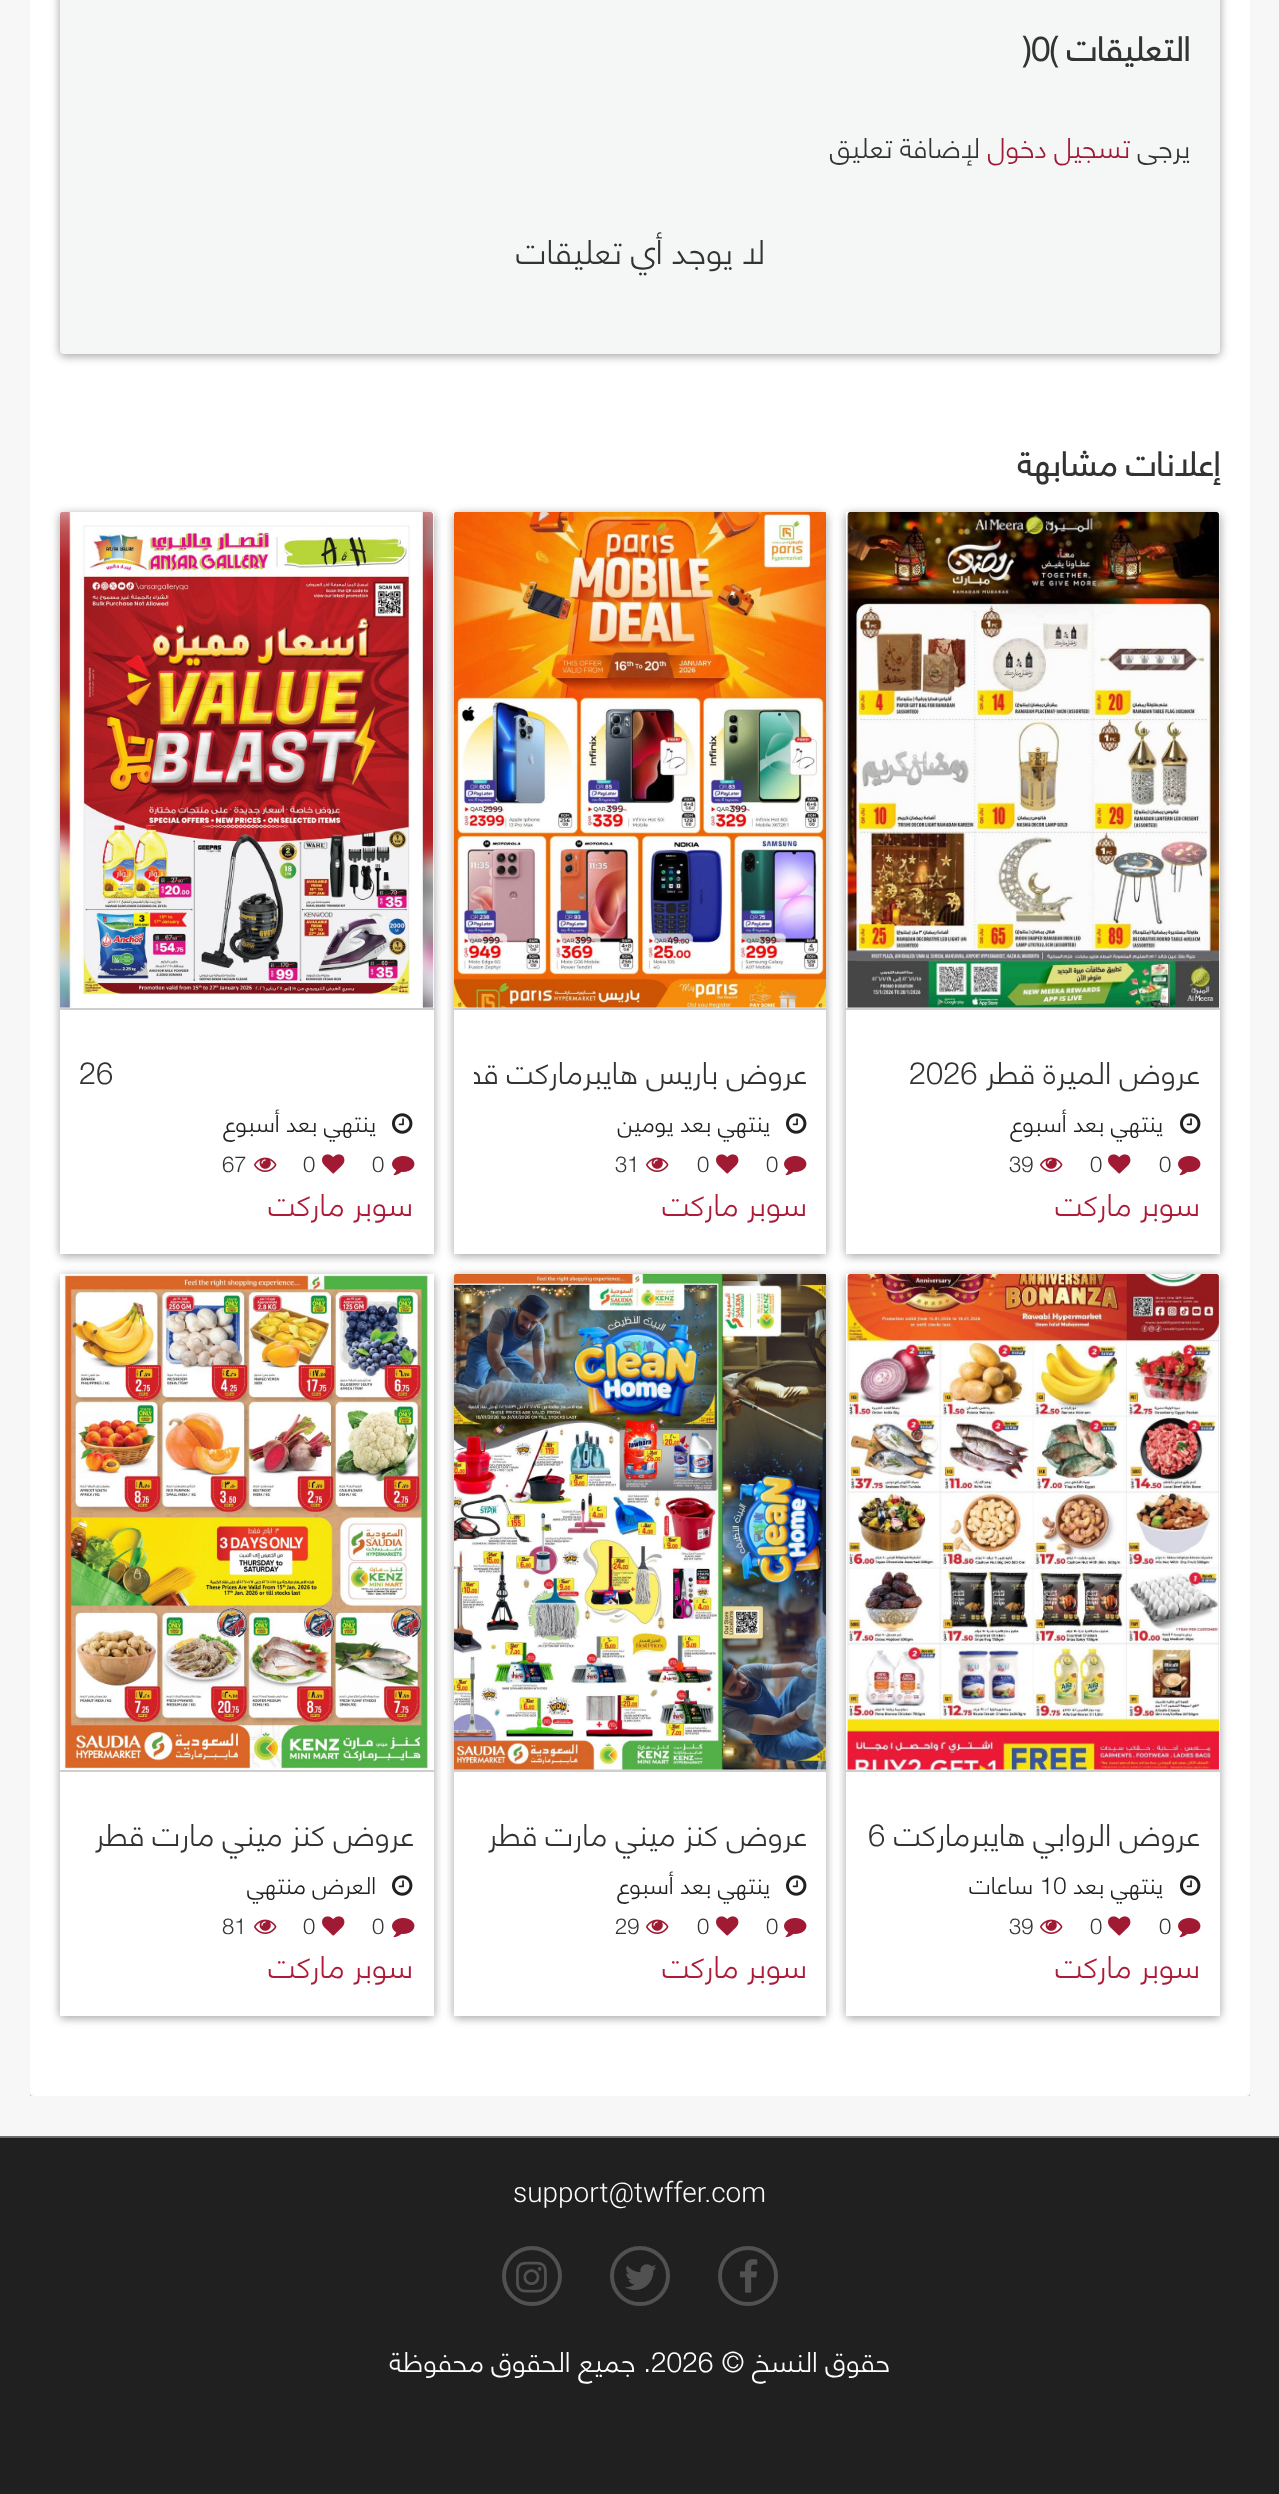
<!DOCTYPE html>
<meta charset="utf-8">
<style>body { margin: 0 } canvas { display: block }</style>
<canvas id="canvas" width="1279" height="2494"></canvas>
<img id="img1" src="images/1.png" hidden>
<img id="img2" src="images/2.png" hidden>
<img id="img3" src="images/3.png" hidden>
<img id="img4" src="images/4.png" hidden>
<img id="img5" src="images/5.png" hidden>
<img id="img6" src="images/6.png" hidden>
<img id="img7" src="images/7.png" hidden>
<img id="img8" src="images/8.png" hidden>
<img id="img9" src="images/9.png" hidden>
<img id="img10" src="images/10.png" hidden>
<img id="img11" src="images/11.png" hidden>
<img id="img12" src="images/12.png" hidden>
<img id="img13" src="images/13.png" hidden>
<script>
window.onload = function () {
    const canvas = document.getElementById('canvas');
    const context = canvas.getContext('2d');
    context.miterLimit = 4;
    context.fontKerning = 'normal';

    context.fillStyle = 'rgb(247, 247, 247)';
    context.fillRect(0, 0, 1279, 2494);
    context.save();
    context.beginPath();
    context.rect(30, 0, 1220, 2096);
    context.clip();
    context.fillStyle = 'rgba(0, 0, 0, 0.19)';
    context.filter = 'blur(5px)';
    context.beginPath();
    context.roundRect(30, -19, 1220, 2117, 4);
    context.fill();
    context.filter = 'none';
    context.fillStyle = 'rgba(0, 0, 0, 0.2)';
    context.filter = 'blur(5px)';
    context.beginPath();
    context.roundRect(30, -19, 1220, 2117, 4);
    context.fill();
    context.filter = 'none';
    context.restore();
    context.fillStyle = 'rgb(255, 255, 255)';
    context.beginPath();
    context.roundRect(30, -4, 1220, 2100, 4);
    context.fill();
    context.fillStyle = 'rgba(0, 0, 0, 0.19)';
    context.filter = 'blur(5px)';
    context.beginPath();
    context.roundRect(60, -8, 1160, 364, 4);
    context.fill();
    context.filter = 'none';
    context.fillStyle = 'rgba(0, 0, 0, 0.2)';
    context.filter = 'blur(5px)';
    context.beginPath();
    context.roundRect(60, -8, 1160, 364, 4);
    context.fill();
    context.filter = 'none';
    context.fillStyle = 'rgb(245, 247, 247)';
    context.beginPath();
    context.roundRect(60, -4, 1160, 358, 4);
    context.fill();
    context.fillStyle = 'rgba(0, 0, 0, 0.19)';
    context.filter = 'blur(5px)';
    context.beginPath();
    context.roundRect(846, 514, 374, 742, 4);
    context.fill();
    context.filter = 'none';
    context.fillStyle = 'rgba(0, 0, 0, 0.2)';
    context.filter = 'blur(5px)';
    context.beginPath();
    context.roundRect(846, 514, 374, 742, 4);
    context.fill();
    context.filter = 'none';
    context.fillStyle = 'rgb(255, 255, 255)';
    context.fillRect(846, 512, 374, 742);
    context.fillStyle = 'rgb(207, 207, 207)';
    context.fillRect(846, 1008, 374, 2);
    context.drawImage(document.getElementById('img1'), 847, 512, 373, 496);
    context.drawImage(document.getElementById('img2'), 1180, 1113, 21, 21);
    context.drawImage(document.getElementById('img3'), 1178, 1156, 23, 20);
    context.drawImage(document.getElementById('img4'), 1108, 1154, 23, 20);
    context.drawImage(document.getElementById('img5'), 1040, 1157, 23, 15);
    context.fillStyle = 'rgba(0, 0, 0, 0.19)';
    context.filter = 'blur(5px)';
    context.beginPath();
    context.roundRect(454, 514, 372, 742, 4);
    context.fill();
    context.filter = 'none';
    context.fillStyle = 'rgba(0, 0, 0, 0.2)';
    context.filter = 'blur(5px)';
    context.beginPath();
    context.roundRect(454, 514, 372, 742, 4);
    context.fill();
    context.filter = 'none';
    context.fillStyle = 'rgb(255, 255, 255)';
    context.fillRect(454, 512, 372, 742);
    context.fillStyle = 'rgb(207, 207, 207)';
    context.fillRect(454, 1008, 372, 2);
    context.drawImage(document.getElementById('img6'), 454, 512, 372, 496);
    context.drawImage(document.getElementById('img2'), 786, 1113, 21, 21);
    context.drawImage(document.getElementById('img3'), 784, 1156, 23, 20);
    context.drawImage(document.getElementById('img4'), 716, 1154, 23, 20);
    context.drawImage(document.getElementById('img5'), 646, 1157, 23, 15);
    context.fillStyle = 'rgba(0, 0, 0, 0.19)';
    context.filter = 'blur(5px)';
    context.beginPath();
    context.roundRect(60, 514, 374, 742, 4);
    context.fill();
    context.filter = 'none';
    context.fillStyle = 'rgba(0, 0, 0, 0.2)';
    context.filter = 'blur(5px)';
    context.beginPath();
    context.roundRect(60, 514, 374, 742, 4);
    context.fill();
    context.filter = 'none';
    context.fillStyle = 'rgb(255, 255, 255)';
    context.fillRect(60, 512, 374, 742);
    context.fillStyle = 'rgb(207, 207, 207)';
    context.fillRect(60, 1008, 374, 2);
    context.drawImage(document.getElementById('img7'), 60, 512, 374, 496);
    context.drawImage(document.getElementById('img2'), 392, 1113, 21, 21);
    context.drawImage(document.getElementById('img3'), 392, 1156, 23, 20);
    context.drawImage(document.getElementById('img4'), 322, 1154, 23, 20);
    context.drawImage(document.getElementById('img5'), 254, 1157, 23, 15);
    context.fillStyle = 'rgba(0, 0, 0, 0.19)';
    context.filter = 'blur(5px)';
    context.beginPath();
    context.roundRect(846, 1276, 374, 742, 4);
    context.fill();
    context.filter = 'none';
    context.fillStyle = 'rgba(0, 0, 0, 0.2)';
    context.filter = 'blur(5px)';
    context.beginPath();
    context.roundRect(846, 1276, 374, 742, 4);
    context.fill();
    context.filter = 'none';
    context.fillStyle = 'rgb(255, 255, 255)';
    context.fillRect(846, 1274, 374, 742);
    context.fillStyle = 'rgb(207, 207, 207)';
    context.fillRect(846, 1770, 374, 2);
    context.drawImage(document.getElementById('img8'), 847, 1274, 373, 496);
    context.drawImage(document.getElementById('img2'), 1180, 1875, 21, 21);
    context.drawImage(document.getElementById('img3'), 1178, 1918, 23, 20);
    context.drawImage(document.getElementById('img4'), 1108, 1916, 23, 20);
    context.drawImage(document.getElementById('img5'), 1040, 1919, 23, 15);
    context.fillStyle = 'rgba(0, 0, 0, 0.19)';
    context.filter = 'blur(5px)';
    context.beginPath();
    context.roundRect(454, 1276, 372, 742, 4);
    context.fill();
    context.filter = 'none';
    context.fillStyle = 'rgba(0, 0, 0, 0.2)';
    context.filter = 'blur(5px)';
    context.beginPath();
    context.roundRect(454, 1276, 372, 742, 4);
    context.fill();
    context.filter = 'none';
    context.fillStyle = 'rgb(255, 255, 255)';
    context.fillRect(454, 1274, 372, 742);
    context.fillStyle = 'rgb(207, 207, 207)';
    context.fillRect(454, 1770, 372, 2);
    context.drawImage(document.getElementById('img9'), 454, 1274, 372, 496);
    context.drawImage(document.getElementById('img2'), 786, 1875, 21, 21);
    context.drawImage(document.getElementById('img3'), 784, 1918, 23, 20);
    context.drawImage(document.getElementById('img4'), 716, 1916, 23, 20);
    context.drawImage(document.getElementById('img5'), 646, 1919, 23, 15);
    context.fillStyle = 'rgba(0, 0, 0, 0.19)';
    context.filter = 'blur(5px)';
    context.beginPath();
    context.roundRect(60, 1276, 374, 742, 4);
    context.fill();
    context.filter = 'none';
    context.fillStyle = 'rgba(0, 0, 0, 0.2)';
    context.filter = 'blur(5px)';
    context.beginPath();
    context.roundRect(60, 1276, 374, 742, 4);
    context.fill();
    context.filter = 'none';
    context.fillStyle = 'rgb(255, 255, 255)';
    context.fillRect(60, 1274, 374, 742);
    context.fillStyle = 'rgb(207, 207, 207)';
    context.fillRect(60, 1770, 374, 2);
    context.drawImage(document.getElementById('img10'), 63, 1274, 367, 496);
    context.drawImage(document.getElementById('img2'), 392, 1875, 21, 21);
    context.drawImage(document.getElementById('img3'), 392, 1918, 23, 20);
    context.drawImage(document.getElementById('img4'), 322, 1916, 23, 20);
    context.drawImage(document.getElementById('img5'), 254, 1919, 23, 15);
    context.fillStyle = 'rgb(32, 32, 32)';
    context.fillRect(0, 2138, 1279, 356);
    context.fillStyle = 'rgb(108, 109, 109)';
    context.fillRect(0, 2136, 1279, 2);
    context.beginPath();
    context.arc(748, 2276, 28, 0, 2 * Math.PI);
    context.strokeStyle = 'rgb(81, 81, 81)';
    context.lineWidth = 4;
    context.stroke();
    context.drawImage(document.getElementById('img11'), 739, 2259, 19, 34);
    context.beginPath();
    context.arc(640, 2276, 28, 0, 2 * Math.PI);
    context.stroke();
    context.drawImage(document.getElementById('img12'), 625, 2264, 32, 26);
    context.beginPath();
    context.arc(532, 2276, 28, 0, 2 * Math.PI);
    context.stroke();
    context.drawImage(document.getElementById('img13'), 516, 2261, 31, 32);
    context.direction = 'rtl';
    context.font = 'bold 33.5px "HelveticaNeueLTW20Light"';
    context.fillStyle = 'rgb(51, 51, 51)';
    context.fillText('التعليقات', 1190, 61);
    context.direction = 'ltr';
    context.fillText('(', 1049, 61);
    context.fillText('0', 1031, 61);
    context.fillText(')', 1023, 61);
    context.direction = 'rtl';
    context.font = '300 28px "HelveticaNeueLTW20Light"';
    context.fillText('يرجى', 1190, 158);
    context.fillStyle = 'rgb(161, 26, 52)';
    context.fillText('تسجيل دخول', 1130, 158);
    context.fillStyle = 'rgb(51, 51, 51)';
    context.fillText('لإضافة تعليق', 980, 158);
    context.font = '300 33.5px "HelveticaNeueLTW20Light"';
    context.fillText('لا يوجد أي تعليقات', 765, 264);
    context.font = 'bold 33.5px "HelveticaNeueLTW20Light"';
    context.fillText('إعلانات مشابهة', 1220, 476);
    context.font = '300 30.75px "HelveticaNeueLTW20Light"';
    context.fillText('عروض الميرة قطر', 1200, 1084);
    context.direction = 'ltr';
    context.fillText('2026', 909, 1084);
    context.direction = 'rtl';
    context.font = '300 23.75px "HelveticaNeueLTW20Light"';
    context.fillStyle = 'rgb(33, 33, 33)';
    context.fillText('ينتهي بعد أسبوع', 1163, 1132);
    context.direction = 'ltr';
    context.font = '300 22px "HelveticaNeueLTW20Light"';
    context.fillStyle = 'rgb(51, 51, 51)';
    context.fillText('0', 1159, 1172);
    context.fillText('0', 1090, 1172);
    context.fillText('39', 1009, 1172);
    context.direction = 'rtl';
    context.font = '300 30.75px "HelveticaNeueLTW20Light"';
    context.fillStyle = 'rgb(172, 28, 56)';
    context.fillText('سوبر ماركت', 1200, 1216);
    context.save();
    context.beginPath();
    context.rect(474, 1040, 332, 60);
    context.clip();
    context.fillStyle = 'rgb(51, 51, 51)';
    context.fillText('عروض باريس هايبرماركت قطر', 807, 1084);
    context.restore();
    context.font = '300 23.75px "HelveticaNeueLTW20Light"';
    context.fillStyle = 'rgb(33, 33, 33)';
    context.fillText('ينتهي بعد يومين', 770, 1132);
    context.direction = 'ltr';
    context.font = '300 22px "HelveticaNeueLTW20Light"';
    context.fillStyle = 'rgb(51, 51, 51)';
    context.fillText('0', 766, 1172);
    context.fillText('0', 697, 1172);
    context.fillText('31', 615, 1172);
    context.direction = 'rtl';
    context.font = '300 30.75px "HelveticaNeueLTW20Light"';
    context.fillStyle = 'rgb(172, 28, 56)';
    context.fillText('سوبر ماركت', 807, 1216);
    context.direction = 'ltr';
    context.fillStyle = 'rgb(51, 51, 51)';
    context.fillText('26', 79, 1084);
    context.direction = 'rtl';
    context.font = '300 23.75px "HelveticaNeueLTW20Light"';
    context.fillStyle = 'rgb(33, 33, 33)';
    context.fillText('ينتهي بعد أسبوع', 376, 1132);
    context.direction = 'ltr';
    context.font = '300 22px "HelveticaNeueLTW20Light"';
    context.fillStyle = 'rgb(51, 51, 51)';
    context.fillText('0', 372, 1172);
    context.fillText('0', 303, 1172);
    context.fillText('67', 222, 1172);
    context.direction = 'rtl';
    context.font = '300 30.75px "HelveticaNeueLTW20Light"';
    context.fillStyle = 'rgb(172, 28, 56)';
    context.fillText('سوبر ماركت', 413, 1216);
    context.fillStyle = 'rgb(51, 51, 51)';
    context.fillText('عروض الروابي هايبرماركت', 1200, 1846);
    context.direction = 'ltr';
    context.fillText('6', 868, 1846);
    context.direction = 'rtl';
    context.font = '300 23.75px "HelveticaNeueLTW20Light"';
    context.fillStyle = 'rgb(33, 33, 33)';
    context.fillText('ينتهي بعد', 1163, 1894);
    context.direction = 'ltr';
    context.fillText('10', 1040, 1894);
    context.direction = 'rtl';
    context.fillText('ساعات', 1033, 1894);
    context.direction = 'ltr';
    context.font = '300 22px "HelveticaNeueLTW20Light"';
    context.fillStyle = 'rgb(51, 51, 51)';
    context.fillText('0', 1159, 1934);
    context.fillText('0', 1090, 1934);
    context.fillText('39', 1009, 1934);
    context.direction = 'rtl';
    context.font = '300 30.75px "HelveticaNeueLTW20Light"';
    context.fillStyle = 'rgb(172, 28, 56)';
    context.fillText('سوبر ماركت', 1200, 1978);
    context.fillStyle = 'rgb(51, 51, 51)';
    context.fillText('عروض كنز ميني مارت قطر', 807, 1846);
    context.font = '300 23.75px "HelveticaNeueLTW20Light"';
    context.fillStyle = 'rgb(33, 33, 33)';
    context.fillText('ينتهي بعد أسبوع', 770, 1894);
    context.direction = 'ltr';
    context.font = '300 22px "HelveticaNeueLTW20Light"';
    context.fillStyle = 'rgb(51, 51, 51)';
    context.fillText('0', 766, 1934);
    context.fillText('0', 697, 1934);
    context.fillText('29', 615, 1934);
    context.direction = 'rtl';
    context.font = '300 30.75px "HelveticaNeueLTW20Light"';
    context.fillStyle = 'rgb(172, 28, 56)';
    context.fillText('سوبر ماركت', 807, 1978);
    context.fillStyle = 'rgb(51, 51, 51)';
    context.fillText('عروض كنز ميني مارت قطر', 414, 1846);
    context.font = '300 23.75px "HelveticaNeueLTW20Light"';
    context.fillStyle = 'rgb(33, 33, 33)';
    context.fillText('العرض منتهي', 376, 1894);
    context.direction = 'ltr';
    context.font = '300 22px "HelveticaNeueLTW20Light"';
    context.fillStyle = 'rgb(51, 51, 51)';
    context.fillText('0', 372, 1934);
    context.fillText('0', 303, 1934);
    context.fillText('81', 222, 1934);
    context.direction = 'rtl';
    context.font = '300 30.75px "HelveticaNeueLTW20Light"';
    context.fillStyle = 'rgb(172, 28, 56)';
    context.fillText('سوبر ماركت', 413, 1978);
    context.direction = 'ltr';
    context.font = '300 28px Roboto';
    context.fillStyle = 'rgb(255, 255, 255)';
    context.fillText('support@twffer.com', 513, 2202);
    context.direction = 'rtl';
    context.font = '300 28px "HelveticaNeueLTW20Light"';
    context.fillText('حقوق النسخ ©', 890, 2372);
    context.direction = 'ltr';
    context.fillText('2026', 651, 2372);
    context.direction = 'rtl';
    context.fillText('. جميع الحقوق محفوظة', 651, 2372);
};
</script>
